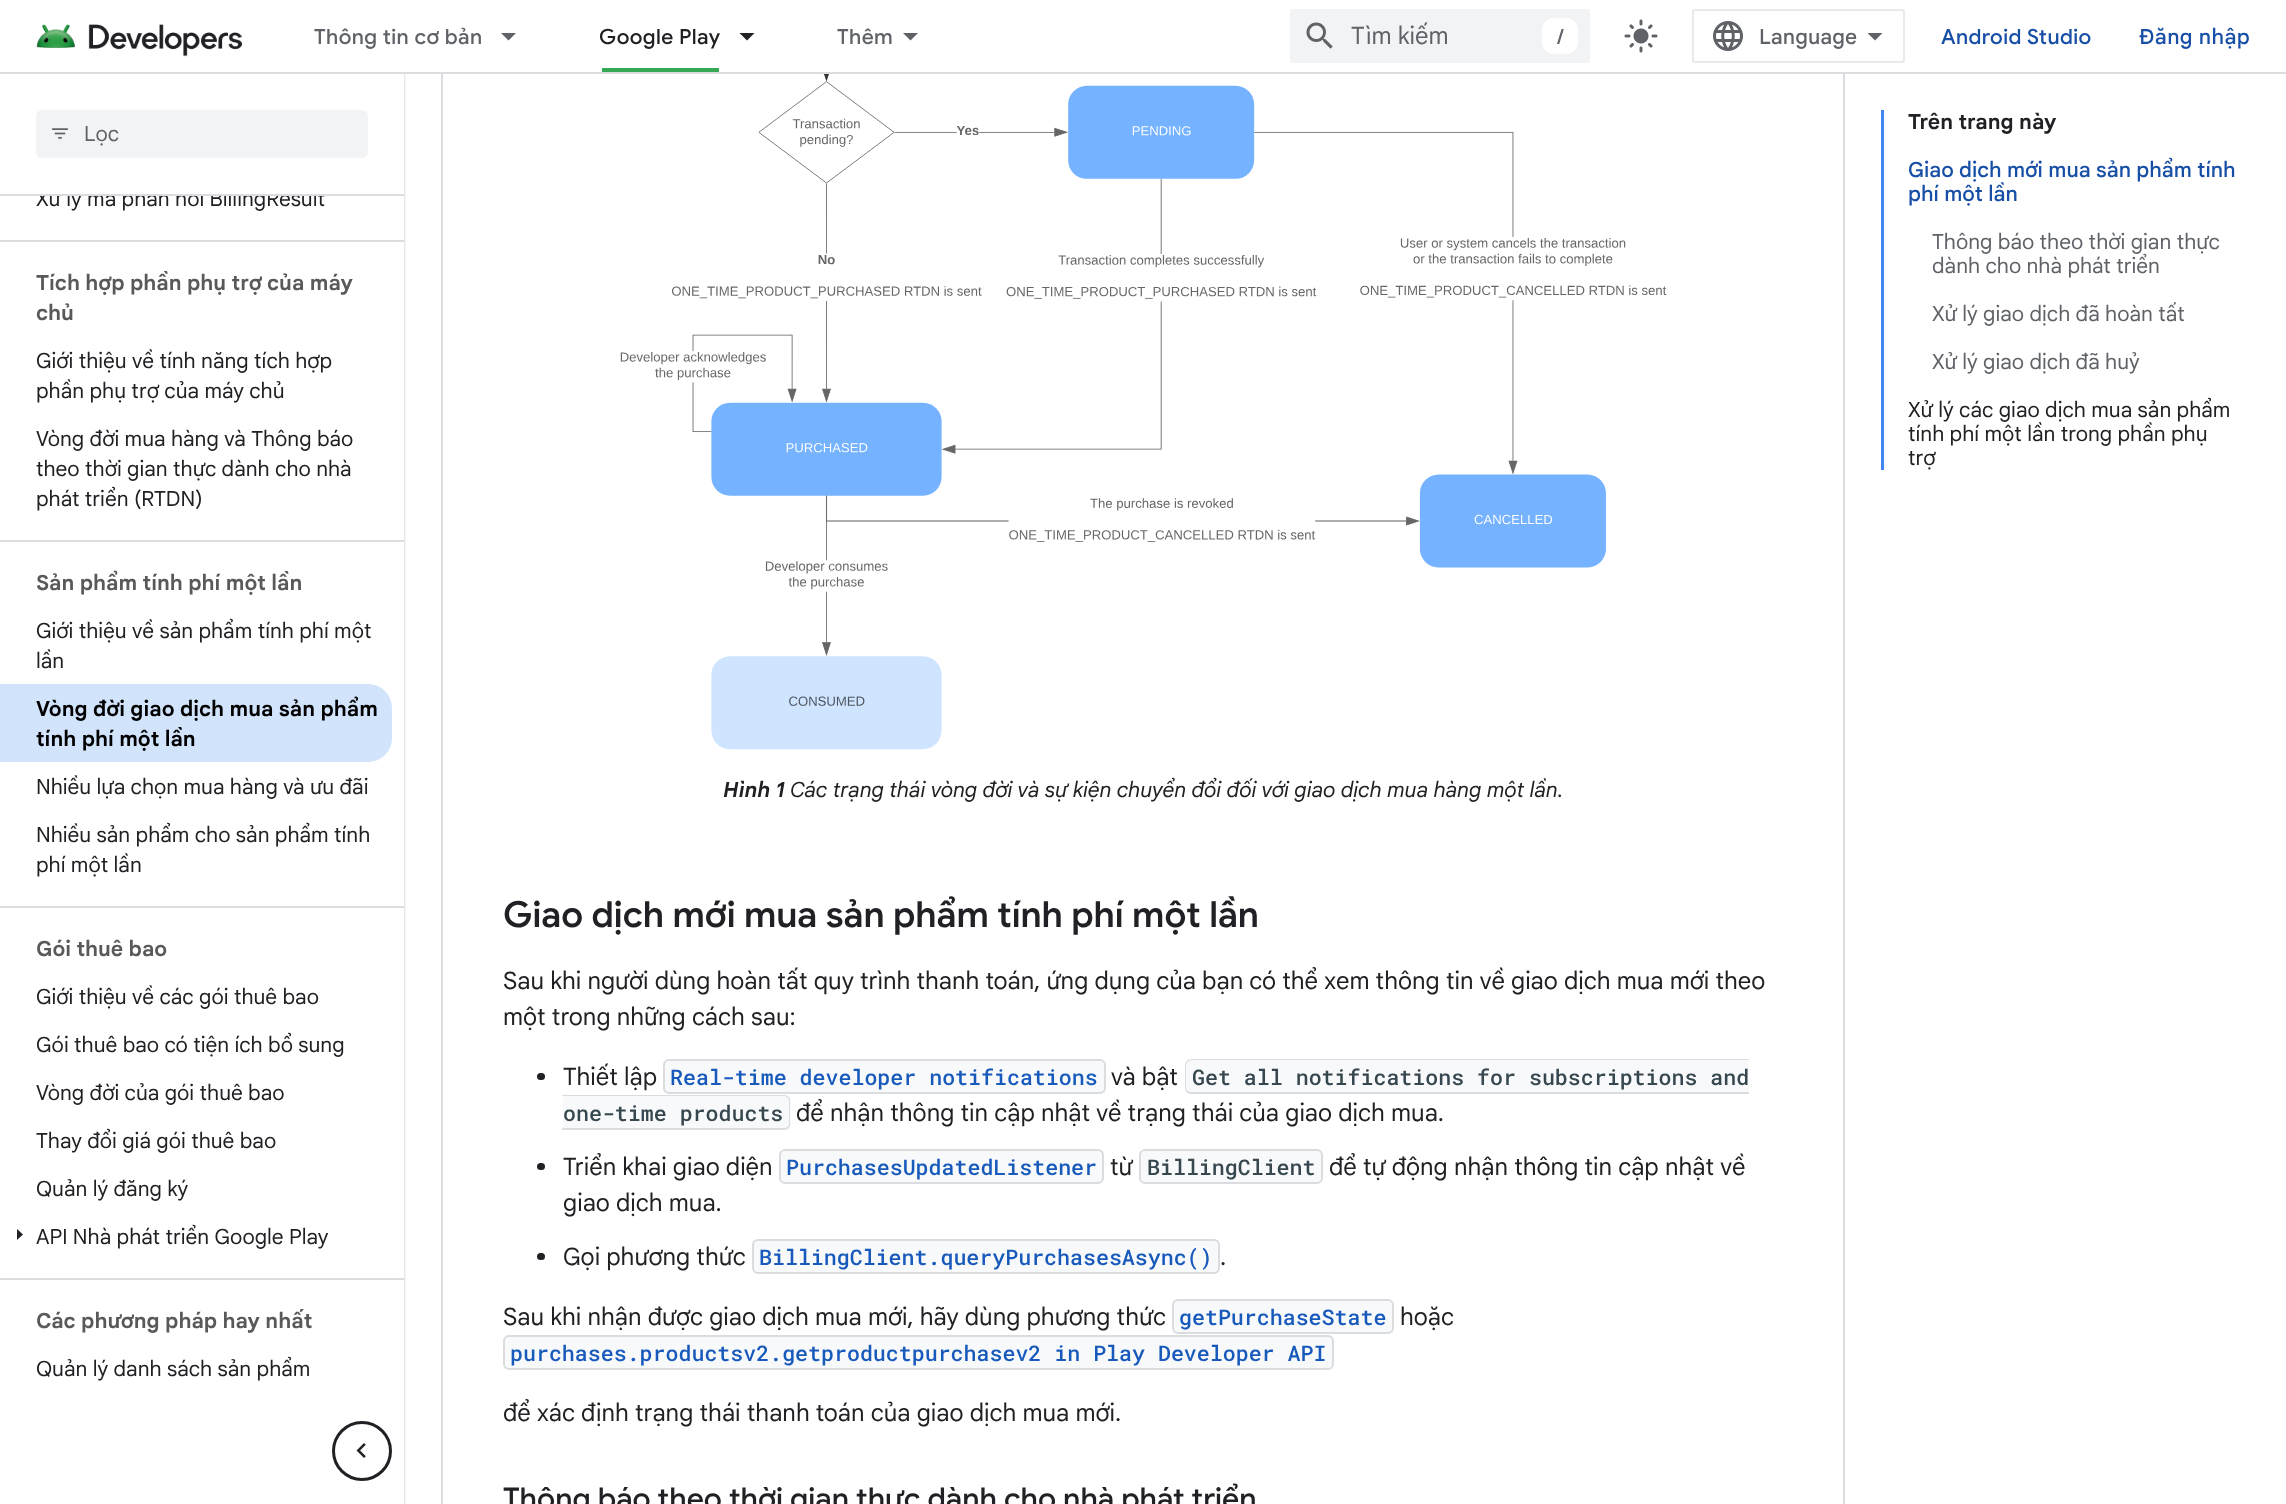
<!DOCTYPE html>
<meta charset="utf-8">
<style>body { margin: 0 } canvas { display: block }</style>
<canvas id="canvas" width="2286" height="1504"></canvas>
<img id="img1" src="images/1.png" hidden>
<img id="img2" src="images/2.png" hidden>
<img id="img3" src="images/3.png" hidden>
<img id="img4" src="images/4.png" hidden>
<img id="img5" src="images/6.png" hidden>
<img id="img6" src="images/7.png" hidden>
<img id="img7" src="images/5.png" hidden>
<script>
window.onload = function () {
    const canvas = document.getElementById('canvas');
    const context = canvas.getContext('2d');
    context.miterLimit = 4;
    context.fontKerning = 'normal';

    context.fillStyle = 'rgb(255, 255, 255)';
    context.fillRect(0, 0, 2286, 1504);
    context.fillStyle = 'rgb(189, 193, 198)';
    context.filter = 'blur(1.5px)';
    context.beginPath();
    context.rect(0, 2, 404, 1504);
    context.fill();
    context.filter = 'none';
    context.fillStyle = 'rgb(255, 255, 255)';
    context.fillRect(0, 196, 404, 1308);
    context.strokeStyle = 'rgb(218, 220, 224)';
    context.lineWidth = 2;
    context.strokeRect(442, -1, 1402, 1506);
    context.fillRect(0, 0, 1845, 72);
    context.fillStyle = 'rgb(218, 220, 224)';
    context.fillRect(0, 72, 2286, 2);
    context.drawImage(document.getElementById('img1'), 36, 24, 206, 33);
    context.fillStyle = 'rgb(95, 99, 104)';
    context.beginPath();
    context.moveTo(501, 33);
    context.lineTo(516, 33);
    context.lineTo(508.5, 40.5);
    context.closePath();
    context.fill();
    context.fillStyle = 'rgb(52, 168, 83)';
    context.fillRect(602, 68, 117, 4);
    context.fillStyle = 'rgb(32, 33, 36)';
    context.beginPath();
    context.moveTo(739.5, 33);
    context.lineTo(754.5, 33);
    context.lineTo(747, 40.5);
    context.closePath();
    context.fill();
    context.fillStyle = 'rgb(95, 99, 104)';
    context.beginPath();
    context.moveTo(903, 33);
    context.lineTo(918, 33);
    context.lineTo(910.5, 40.5);
    context.closePath();
    context.fill();
    context.fillStyle = 'rgb(241, 243, 244)';
    context.beginPath();
    context.roundRect(1290, 9, 300, 54, 3);
    context.fill();
    context.drawImage(document.getElementById('img2'), 1306, 22, 27, 27);
    context.fillStyle = 'rgb(255, 255, 255)';
    context.beginPath();
    context.roundRect(1542, 18, 36, 36, 12);
    context.fill();
    context.drawImage(document.getElementById('img3'), 1624, 19, 34, 34);
    context.beginPath();
    context.roundRect(1693, 10, 211, 52, 2);
    context.strokeStyle = 'rgb(232, 234, 237)';
    context.stroke();
    context.drawImage(document.getElementById('img4'), 1713, 21, 30, 30);
    context.fillStyle = 'rgb(95, 99, 104)';
    context.beginPath();
    context.moveTo(1875, 40.5);
    context.lineTo(1867.5, 33);
    context.lineTo(1882.5, 33);
    context.closePath();
    context.fill();
    context.fillStyle = 'rgb(218, 220, 224)';
    context.fillRect(0, 240, 404, 2);
    context.fillRect(0, 540, 404, 2);
    context.fillStyle = 'rgb(210, 227, 252)';
    context.beginPath();
    context.roundRect(0, 684, 392, 78, [0, 24, 24, 0]);
    context.fill();
    context.fillStyle = 'rgb(218, 220, 224)';
    context.fillRect(0, 906, 404, 2);
    context.fillStyle = 'rgb(32, 33, 36)';
    context.beginPath();
    context.moveTo(17, 1240);
    context.lineTo(17, 1229);
    context.lineTo(23, 1234.5);
    context.closePath();
    context.fill();
    context.fillStyle = 'rgb(218, 220, 224)';
    context.fillRect(0, 1278, 404, 2);
    context.fillStyle = 'rgb(66, 133, 244)';
    context.fillRect(1881, 110, 3, 360);
    context.drawImage(document.getElementById('img5'), 620, 74, 1047, 676);
    context.fillStyle = 'rgb(32, 33, 36)';
    context.beginPath();
    context.roundRect(537, 1073, 8, 7, 3.5);
    context.fill();
    context.fillStyle = 'rgb(248, 249, 250)';
    context.beginPath();
    context.roundRect(664, 1060, 441, 33, 5);
    context.fill();
    context.strokeStyle = 'rgb(218, 220, 224)';
    context.stroke();
    context.beginPath();
    context.roundRect(1185, 1059, 564, 35, [6, 0, 0, 6]);
    context.fill();
    context.fillStyle = 'rgb(218, 220, 224)';
    context.beginPath();
    context.moveTo(1191, 1059);
    context.lineTo(1749, 1059);
    context.lineTo(1749, 1094);
    context.lineTo(1191, 1094);
    context.bezierCurveTo(1188, 1094, 1185, 1091, 1185, 1088);
    context.lineTo(1185, 1065);
    context.bezierCurveTo(1185, 1062, 1188, 1059, 1191, 1059);
    context.closePath();
    context.moveTo(1191, 1060);
    context.lineTo(1749, 1060);
    context.lineTo(1749, 1092);
    context.lineTo(1191, 1092);
    context.bezierCurveTo(1189, 1092, 1186, 1090, 1186, 1088);
    context.lineTo(1186, 1065);
    context.bezierCurveTo(1186, 1063, 1189, 1060, 1191, 1060);
    context.closePath();
    context.fill('evenodd');
    context.fillStyle = 'rgb(248, 249, 250)';
    context.beginPath();
    context.roundRect(563, 1095, 228, 35, [0, 6, 6, 0]);
    context.fill();
    context.fillStyle = 'rgb(218, 220, 224)';
    context.beginPath();
    context.moveTo(562, 1095);
    context.lineTo(784, 1095);
    context.bezierCurveTo(788, 1095, 790, 1098, 790, 1101);
    context.lineTo(790, 1124);
    context.bezierCurveTo(790, 1127, 788, 1130, 784, 1130);
    context.lineTo(562, 1130);
    context.closePath();
    context.moveTo(562, 1096);
    context.lineTo(784, 1096);
    context.bezierCurveTo(787, 1096, 789, 1099, 789, 1101);
    context.lineTo(789, 1124);
    context.bezierCurveTo(789, 1126, 787, 1128, 784, 1128);
    context.lineTo(562, 1128);
    context.closePath();
    context.fill('evenodd');
    context.fillStyle = 'rgb(32, 33, 36)';
    context.beginPath();
    context.roundRect(537, 1163, 8, 7, 3.5);
    context.fill();
    context.fillStyle = 'rgb(248, 249, 250)';
    context.beginPath();
    context.roundRect(780, 1150, 323, 33, 5);
    context.fill();
    context.stroke();
    context.beginPath();
    context.roundRect(1140, 1150, 182, 33, 5);
    context.fill();
    context.stroke();
    context.fillStyle = 'rgb(32, 33, 36)';
    context.beginPath();
    context.roundRect(537, 1253, 8, 7, 3.5);
    context.fill();
    context.fillStyle = 'rgb(248, 249, 250)';
    context.beginPath();
    context.roundRect(753, 1240, 466, 33, 5);
    context.fill();
    context.stroke();
    context.beginPath();
    context.roundRect(1173, 1300, 220, 33, 5);
    context.fill();
    context.stroke();
    context.beginPath();
    context.roundRect(504, 1336, 829, 33, 5);
    context.fill();
    context.stroke();
    context.beginPath();
    context.arc(362, 1451, 28.5, 0, 2 * Math.PI);
    context.strokeStyle = 'rgb(32, 33, 36)';
    context.lineWidth = 3;
    context.stroke();
    context.drawImage(document.getElementById('img6'), 356, 1443, 10, 15);
    context.letterSpacing = '0.4px';
    context.font = '500 21px Google Sans';
    context.fillStyle = 'rgb(95, 99, 104)';
    context.fillText('Thông tin cơ bản', 314, 44);
    context.fillStyle = 'rgb(32, 33, 36)';
    context.fillText('Google Play', 599, 44);
    context.fillStyle = 'rgb(95, 99, 104)';
    context.fillText('Thêm', 837, 44);
    context.letterSpacing = '0px';
    context.font = '24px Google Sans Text';
    context.fillText('Tìm kiếm', 1351, 44);
    context.font = '500 21px Google Sans';
    context.fillText('/', 1557, 44);
    context.font = '500 21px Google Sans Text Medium';
    context.fillText('Language', 1759, 44);
    context.letterSpacing = '0.4px';
    context.font = '500 21px Google Sans';
    context.fillStyle = 'rgb(23, 78, 166)';
    context.fillText('Android Studio', 1941, 44);
    context.font = '500 21px Google Sans Text Medium';
    context.fillText('Đăng nhập', 2139, 44);
    context.letterSpacing = '0px';
    context.font = '21px Google Sans Text';
    context.fillStyle = 'rgb(32, 33, 36)';
    context.fillText('Xử lý mã phản hồi BillingResult', 36, 206);
    context.fillStyle = 'rgb(255, 255, 255)';
    context.fillRect(0, 74, 404, 120);
    context.fillStyle = 'rgb(241, 243, 244)';
    context.beginPath();
    context.roundRect(36, 110, 332, 48, 6);
    context.fill();
    context.drawImage(document.getElementById('img7'), 52, 128, 16, 11);
    context.fillStyle = 'rgb(95, 99, 104)';
    context.fillText('Lọc', 84, 141);
    context.fillStyle = 'rgb(218, 220, 224)';
    context.fillRect(0, 194, 404, 2);
    context.font = 'bold 21px Google Sans Text';
    context.fillStyle = 'rgb(89, 89, 89)';
    context.fillText('Tích hợp phần phụ trợ của máy', 36, 290);
    context.fillText('chủ', 36, 320);
    context.font = '21px Google Sans Text';
    context.fillStyle = 'rgb(32, 33, 36)';
    context.fillText('Giới thiệu về tính năng tích hợp', 36, 368);
    context.fillText('phần phụ trợ của máy chủ', 36, 398);
    context.fillText('Vòng đời mua hàng và Thông báo', 36, 446);
    context.fillText('theo thời gian thực dành cho nhà', 36, 476);
    context.fillText('phát triển (RTDN)', 36, 506);
    context.font = 'bold 21px Google Sans Text';
    context.fillStyle = 'rgb(89, 89, 89)';
    context.fillText('Sản phẩm tính phí một lần', 36, 590);
    context.font = '21px Google Sans Text';
    context.fillStyle = 'rgb(32, 33, 36)';
    context.fillText('Giới thiệu về sản phẩm tính phí một', 36, 638);
    context.fillText('lần', 36, 668);
    context.font = 'bold 21px Google Sans Text';
    context.fillStyle = 'rgb(0, 0, 0)';
    context.fillText('Vòng đời giao dịch mua sản phẩm', 36, 716);
    context.fillText('tính phí một lần', 36, 746);
    context.font = '21px Google Sans Text';
    context.fillStyle = 'rgb(32, 33, 36)';
    context.fillText('Nhiều lựa chọn mua hàng và ưu đãi', 36, 794);
    context.fillText('Nhiều sản phẩm cho sản phẩm tính', 36, 842);
    context.fillText('phí một lần', 36, 872);
    context.font = 'bold 21px Google Sans Text';
    context.fillStyle = 'rgb(89, 89, 89)';
    context.fillText('Gói thuê bao', 36, 956);
    context.font = '21px Google Sans Text';
    context.fillStyle = 'rgb(32, 33, 36)';
    context.fillText('Giới thiệu về các gói thuê bao', 36, 1004);
    context.fillText('Gói thuê bao có tiện ích bổ sung', 36, 1052);
    context.fillText('Vòng đời của gói thuê bao', 36, 1100);
    context.fillText('Thay đổi giá gói thuê bao', 36, 1148);
    context.fillText('Quản lý đăng ký', 36, 1196);
    context.fillText('API Nhà phát triển Google Play', 36, 1244);
    context.font = 'bold 21px Google Sans Text';
    context.fillStyle = 'rgb(89, 89, 89)';
    context.fillText('Các phương pháp hay nhất', 36, 1328);
    context.font = '21px Google Sans Text';
    context.fillStyle = 'rgb(32, 33, 36)';
    context.fillText('Quản lý danh sách sản phẩm', 36, 1376);
    context.font = 'bold 21px Google Sans Text';
    context.fillText('Trên trang này', 1908, 129);
    context.font = '500 21px Google Sans Text Medium';
    context.fillStyle = 'rgb(23, 78, 166)';
    context.fillText('Giao dịch mới mua sản phẩm tính', 1908, 177);
    context.fillText('phí một lần', 1908, 201);
    context.font = '21px Google Sans Text';
    context.fillStyle = 'rgb(95, 99, 104)';
    context.fillText('Thông báo theo thời gian thực', 1932, 249);
    context.fillText('dành cho nhà phát triển', 1932, 273);
    context.fillText('Xử lý giao dịch đã hoàn tất', 1932, 321);
    context.fillText('Xử lý giao dịch đã huỷ', 1932, 369);
    context.fillStyle = 'rgb(32, 33, 36)';
    context.fillText('Xử lý các giao dịch mua sản phẩm', 1908, 417);
    context.fillText('tính phí một lần trong phần phụ', 1908, 441);
    context.fillText('trợ', 1908, 465);
    context.font = 'italic bold 21px Google Sans Text';
    context.fillText('Hình 1', 723, 797);
    context.font = 'italic 21px Google Sans Text';
    context.fillText('Các trạng thái vòng đời và sự kiện chuyển đổi đối với giao dịch mua hàng một lần.', 790, 797);
    context.font = '600 36px Google Sans';
    context.fillText('Giao dịch mới mua sản phẩm tính phí một lần', 503, 927);
    context.font = '24px Google Sans Text';
    context.fillText('Sau khi người dùng hoàn tất quy trình thanh toán, ứng dụng của bạn có thể xem thông tin về giao dịch mua mới theo', 503, 989);
    context.fillText('một trong những cách sau:', 503, 1025);
    context.fillText('Thiết lập', 563, 1085);
    context.font = '500 21.6px Roboto Mono';
    context.fillStyle = 'rgb(24, 90, 188)';
    context.fillText('Real-time developer notifications', 670, 1085);
    context.font = '24px Google Sans Text';
    context.fillStyle = 'rgb(32, 33, 36)';
    context.fillText('và bật', 1111, 1085);
    context.font = '500 21.6px Roboto Mono';
    context.fillStyle = 'rgb(55, 71, 79)';
    context.fillText('Get all notifications for subscriptions and', 1192, 1085);
    context.fillText('one-time products', 563, 1121);
    context.font = '24px Google Sans Text';
    context.fillStyle = 'rgb(32, 33, 36)';
    context.fillText('để nhận thông tin cập nhật về trạng thái của giao dịch mua.', 796, 1121);
    context.fillText('Triển khai giao diện', 563, 1175);
    context.font = '500 21.6px Roboto Mono';
    context.fillStyle = 'rgb(24, 90, 188)';
    context.fillText('PurchasesUpdatedListener', 786, 1175);
    context.font = '24px Google Sans Text';
    context.fillStyle = 'rgb(32, 33, 36)';
    context.fillText('từ', 1110, 1175);
    context.font = '500 21.6px Roboto Mono';
    context.fillStyle = 'rgb(55, 71, 79)';
    context.fillText('BillingClient', 1147, 1175);
    context.font = '24px Google Sans Text';
    context.fillStyle = 'rgb(32, 33, 36)';
    context.fillText('để tự động nhận thông tin cập nhật về', 1329, 1175);
    context.fillText('giao dịch mua.', 563, 1211);
    context.fillText('Gọi phương thức', 563, 1265);
    context.font = '500 21.6px Roboto Mono';
    context.fillStyle = 'rgb(24, 90, 188)';
    context.fillText('BillingClient.queryPurchasesAsync()', 759, 1265);
    context.font = '24px Google Sans Text';
    context.fillStyle = 'rgb(32, 33, 36)';
    context.fillText('.', 1220, 1265);
    context.fillText('Sau khi nhận được giao dịch mua mới, hãy dùng phương thức', 503, 1325);
    context.font = '500 21.6px Roboto Mono';
    context.fillStyle = 'rgb(24, 90, 188)';
    context.fillText('getPurchaseState', 1179, 1325);
    context.font = '24px Google Sans Text';
    context.fillStyle = 'rgb(32, 33, 36)';
    context.fillText('hoặc', 1400, 1325);
    context.font = '500 21.6px Roboto Mono';
    context.fillStyle = 'rgb(24, 90, 188)';
    context.fillText('purchases.productsv2.getproductpurchasev2 in Play Developer API', 510, 1361);
    context.font = '24px Google Sans Text';
    context.fillStyle = 'rgb(32, 33, 36)';
    context.fillText('để xác định trạng thái thanh toán của giao dịch mua mới.', 503, 1421);
    context.font = '500 30px Google Sans';
    context.fillText('Thông báo theo thời gian thực dành cho nhà phát triển', 503, 1509);
};
</script>
